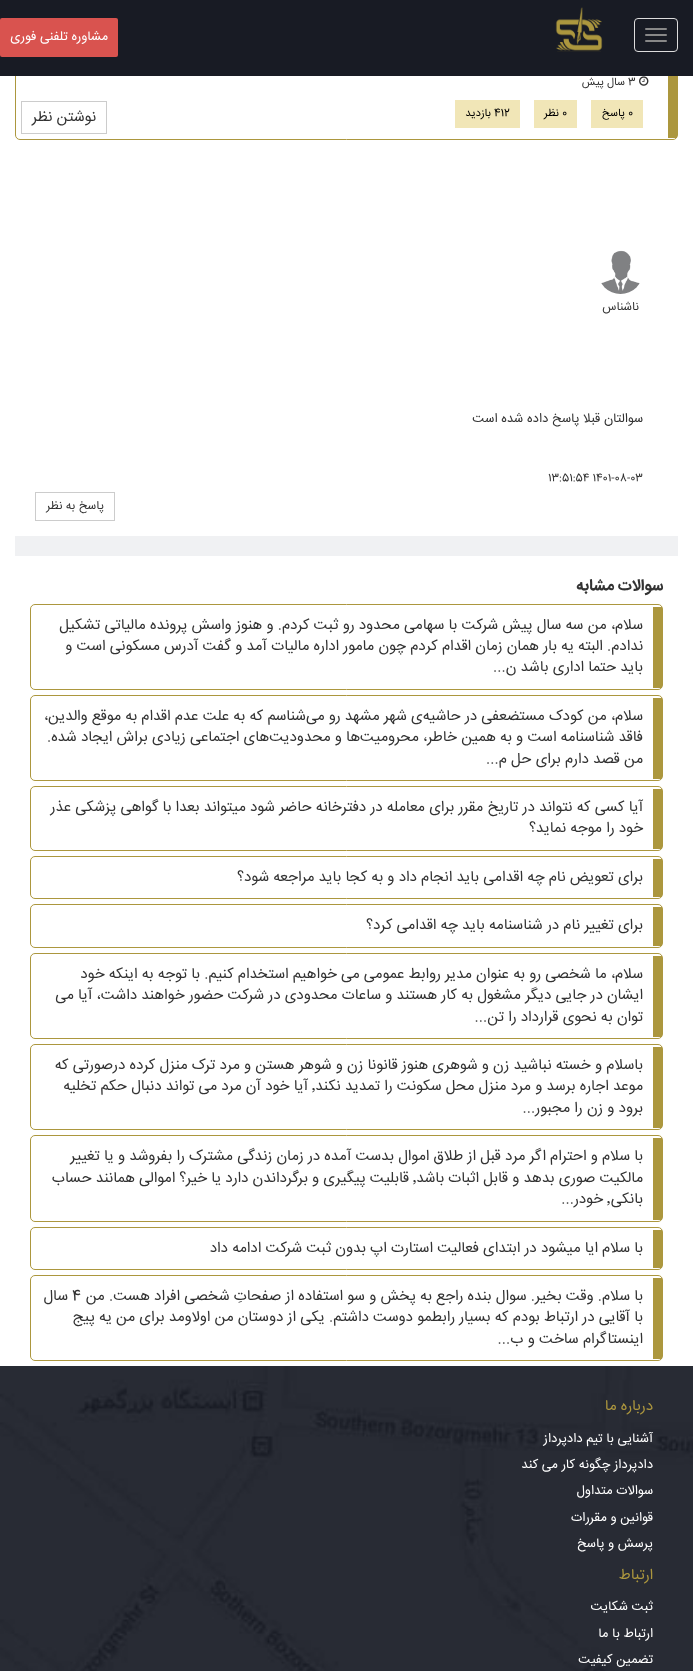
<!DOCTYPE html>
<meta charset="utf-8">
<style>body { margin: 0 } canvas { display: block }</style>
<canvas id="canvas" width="693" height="1671"></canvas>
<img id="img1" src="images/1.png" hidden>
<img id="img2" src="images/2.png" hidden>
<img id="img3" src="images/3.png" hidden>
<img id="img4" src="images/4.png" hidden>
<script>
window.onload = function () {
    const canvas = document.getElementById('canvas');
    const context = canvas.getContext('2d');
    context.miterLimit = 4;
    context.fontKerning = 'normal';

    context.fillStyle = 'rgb(255, 255, 255)';
    context.fillRect(0, 0, 693, 1671);
    context.beginPath();
    context.roundRect(15.5, -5.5, 662, 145, 4.5);
    context.strokeStyle = 'rgb(172, 151, 62)';
    context.stroke();
    context.fillStyle = 'rgb(24, 27, 36)';
    context.fillRect(0, 0, 693, 76);
    context.beginPath();
    context.roundRect(634.5, 18.5, 43, 33, 3.5);
    context.strokeStyle = 'rgb(221, 221, 221)';
    context.stroke();
    context.fillStyle = 'rgb(136, 136, 136)';
    context.beginPath();
    context.roundRect(645, 28, 22, 2, 1);
    context.fill();
    context.beginPath();
    context.roundRect(645, 34, 22, 2, 1);
    context.fill();
    context.beginPath();
    context.roundRect(645, 40, 22, 2, 1);
    context.fill();
    context.drawImage(document.getElementById('img1'), 555, 7, 48, 45);
    context.fillStyle = 'rgb(217, 83, 79)';
    context.beginPath();
    context.roundRect(0, 18, 118, 39, 2);
    context.fill();
    context.fillStyle = 'rgb(172, 151, 62)';
    context.fillRect(668, 76, 9, 62);
    context.drawImage(document.getElementById('img2'), 639, 76, 10, 10);
    context.fillStyle = 'rgb(241, 230, 183)';
    context.fillRect(591, 100, 52, 28);
    context.fillRect(534, 100, 43, 28);
    context.fillRect(455, 100, 65, 28);
    context.strokeStyle = 'rgb(204, 204, 204)';
    context.strokeRect(21.5, 101.5, 85, 32);
    context.drawImage(document.getElementById('img3'), 601, 250, 39, 44);
    context.strokeRect(35.5, 492.5, 79, 28);
    context.fillStyle = 'rgb(240, 241, 243)';
    context.fillRect(15, 536, 663, 20);
    context.beginPath();
    context.roundRect(30.5, 604.5, 632, 85, 4.5);
    context.strokeStyle = 'rgb(172, 151, 62)';
    context.stroke();
    context.fillStyle = 'rgb(172, 151, 62)';
    context.fillRect(653, 607, 9, 81);
    context.beginPath();
    context.roundRect(30.5, 695.5, 632, 85, 4.5);
    context.stroke();
    context.fillRect(653, 698, 9, 81);
    context.beginPath();
    context.roundRect(30.5, 786.5, 632, 64, 4.5);
    context.stroke();
    context.fillRect(653, 789, 9, 60);
    context.beginPath();
    context.roundRect(30.5, 856.5, 632, 42, 4.5);
    context.stroke();
    context.fillRect(653, 859, 9, 38);
    context.beginPath();
    context.roundRect(30.5, 904.5, 632, 43, 4.5);
    context.stroke();
    context.fillRect(653, 907, 9, 39);
    context.beginPath();
    context.roundRect(30.5, 953.5, 632, 85, 4.5);
    context.stroke();
    context.fillRect(653, 956, 9, 81);
    context.beginPath();
    context.roundRect(30.5, 1044.5, 632, 85, 4.5);
    context.stroke();
    context.fillRect(653, 1047, 9, 81);
    context.beginPath();
    context.roundRect(30.5, 1135.5, 632, 86, 4.5);
    context.stroke();
    context.fillRect(653, 1138, 9, 82);
    context.beginPath();
    context.roundRect(30.5, 1227.5, 632, 42, 4.5);
    context.stroke();
    context.fillRect(653, 1230, 9, 38);
    context.beginPath();
    context.roundRect(30.5, 1275.5, 632, 85, 4.5);
    context.stroke();
    context.fillRect(653, 1278, 9, 81);
    context.drawImage(document.getElementById('img4'), 0, 1366, 693, 305);
    context.direction = 'rtl';
    context.font = '13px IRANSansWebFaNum';
    context.fillStyle = 'rgb(255, 255, 255)';
    context.fillText('مشاوره تلفنی فوری', 108, 40);
    context.direction = 'ltr';
    context.font = '11px IRANSansWebFaNum';
    context.fillStyle = 'rgb(51, 51, 51)';
    context.fillText('3', 628, 85);
    context.direction = 'rtl';
    context.fillText('سال پیش', 625, 85);
    context.direction = 'ltr';
    context.fillStyle = 'rgb(0, 0, 0)';
    context.fillText('0', 628, 116);
    context.direction = 'rtl';
    context.fillText('پاسخ', 625, 116);
    context.direction = 'ltr';
    context.fillText('0', 562, 116);
    context.direction = 'rtl';
    context.fillText('نظر', 559, 116);
    context.direction = 'ltr';
    context.fillText('412', 494, 116);
    context.direction = 'rtl';
    context.fillText('بازدید', 491, 116);
    context.font = '15px IRANSansWebFaNum';
    context.fillStyle = 'rgb(51, 51, 51)';
    context.fillText('نوشتن نظر', 96, 121);
    context.font = '12px IRANSansWebFaNum';
    context.fillText('ناشناس', 639, 310);
    context.font = '13px IRANSansWebFaNum';
    context.fillText('سوالتان قبلا پاسخ داده شده است', 643, 422);
    context.direction = 'ltr';
    context.font = '11px IRANSansWebFaNum';
    context.fillText('13:51:54 1401-08-03', 548, 481);
    context.direction = 'rtl';
    context.font = '12px IRANSansWebFaNum';
    context.fillText('پاسخ به نظر', 104, 509);
    context.font = 'bold 16px IRANSansWebFaNum';
    context.fillText('سوالات مشابه', 663, 590);
    context.font = '15px IRANSansWebFaNum';
    context.fillText('سلام، من سه سال پیش شرکت با سهامی محدود رو ثبت کردم. و هنوز واسش پرونده مالیاتی تشکیل', 643, 629);
    context.fillText('ندادم. البته یه بار همان زمان اقدام کردم چون مامور اداره مالیات آمد و گفت آدرس مسکونی است و', 643, 650);
    context.fillText('باید حتما اداری باشد ن...', 643, 671);
    context.fillText('سلام، من کودک مستضعفی در حاشیه‌ی شهر مشهد رو می‌شناسم که به علت عدم اقدام به موقع والدین،', 643, 720);
    context.fillText('فاقد شناسنامه است و به همین خاطر، محرومیت‌ها و محدودیت‌های اجتماعی زیادی براش ایجاد شده.', 643, 741);
    context.fillText('من قصد دارم برای حل م...', 643, 763);
    context.fillText('آیا کسی که نتواند در تاریخ مقرر برای معامله در دفترخانه حاضر شود میتواند بعدا با گواهی پزشکی عذر', 643, 811);
    context.fillText('خود را موجه نماید؟', 643, 832);
    context.fillText('برای تعویض نام چه اقدامی باید انجام داد و به کجا باید مراجعه شود؟', 643, 881);
    context.fillText('برای تغییر نام در شناسنامه باید چه اقدامی کرد؟', 643, 929);
    context.fillText('سلام، ما شخصی رو به عنوان مدیر روابط عمومی می خواهیم استخدام کنیم. با توجه به اینکه خود', 643, 978);
    context.fillText('ایشان در جایی دیگر مشغول به کار هستند و ساعات محدودی در شرکت حضور خواهند داشت، آیا می', 643, 999);
    context.fillText('توان به نحوی قرارداد را تن...', 643, 1021);
    context.fillText('باسلام و خسته نباشید زن و شوهری هنوز قانونا زن و شوهر هستن و مرد ترک منزل کرده درصورتی که', 643, 1069);
    context.fillText('موعد اجاره برسد و مرد منزل محل سکونت را تمدید نکند', 643, 1090);
    context.direction = 'ltr';
    context.fillText('٬', 312, 1090);
    context.direction = 'rtl';
    context.fillText('آیا خود آن مرد می تواند دنبال حکم تخلیه', 308, 1090);
    context.fillText('برود و زن را مجبور...', 643, 1112);
    context.fillText('با سلام و احترام', 643, 1160);
    context.fillText('اگر مرد قبل از طلاق اموال بدست آمده در زمان زندگی مشترک را بفروشد و یا تغییر', 546, 1160);
    context.fillText('مالکیت صوری بدهد و قابل اثبات باشد', 643, 1182);
    context.direction = 'ltr';
    context.fillText('٬', 413, 1182);
    context.direction = 'rtl';
    context.fillText('قابلیت پیگیری و برگرداندن دارد یا خیر؟ اموالی همانند حساب', 409, 1182);
    context.fillText('بانکی', 643, 1203);
    context.direction = 'ltr';
    context.fillText('٬', 607, 1203);
    context.direction = 'rtl';
    context.fillText('خودر...', 603, 1203);
    context.fillText('با سلام', 643, 1252);
    context.fillText('ایا میشود در ابتدای فعالیت استارت اپ بدون ثبت شرکت ادامه داد', 598, 1252);
    context.fillText('با سلام. وقت بخیر. سوال بنده راجع به پخش و سو استفاده از صفحاتِ شخصی افراد هست. من', 643, 1300);
    context.direction = 'ltr';
    context.fillText('4', 72, 1300);
    context.direction = 'rtl';
    context.fillText('سال', 68, 1300);
    context.fillText('با آقایی در ارتباط بودم که بسیار رابطمو دوست داشتم. یکی از دوستان من اولاومد برای من یه پیج', 643, 1321);
    context.fillText('اینستاگرام ساخت و ب...', 643, 1343);
    context.fillStyle = 'rgb(172, 150, 62)';
    context.fillText('درباره ما', 653, 1410);
    context.font = '13px IRANSansWebFaNum';
    context.fillStyle = 'rgb(255, 255, 255)';
    context.fillText('آشنایی با تیم دادپرداز', 653, 1442);
    context.fillText('دادپرداز چگونه کار می کند', 653, 1468);
    context.fillText('سوالات متداول', 653, 1494);
    context.fillText('قوانین و مقررات', 653, 1521);
    context.fillText('پرسش و پاسخ', 653, 1547);
    context.font = '15px IRANSansWebFaNum';
    context.fillStyle = 'rgb(172, 150, 62)';
    context.fillText('ارتباط', 653, 1579);
    context.font = '13px IRANSansWebFaNum';
    context.fillStyle = 'rgb(255, 255, 255)';
    context.fillText('ثبت شکایت', 653, 1610);
    context.fillText('ارتباط با ما', 653, 1637);
    context.fillText('تضمین کیفیت', 653, 1663);
};
</script>
